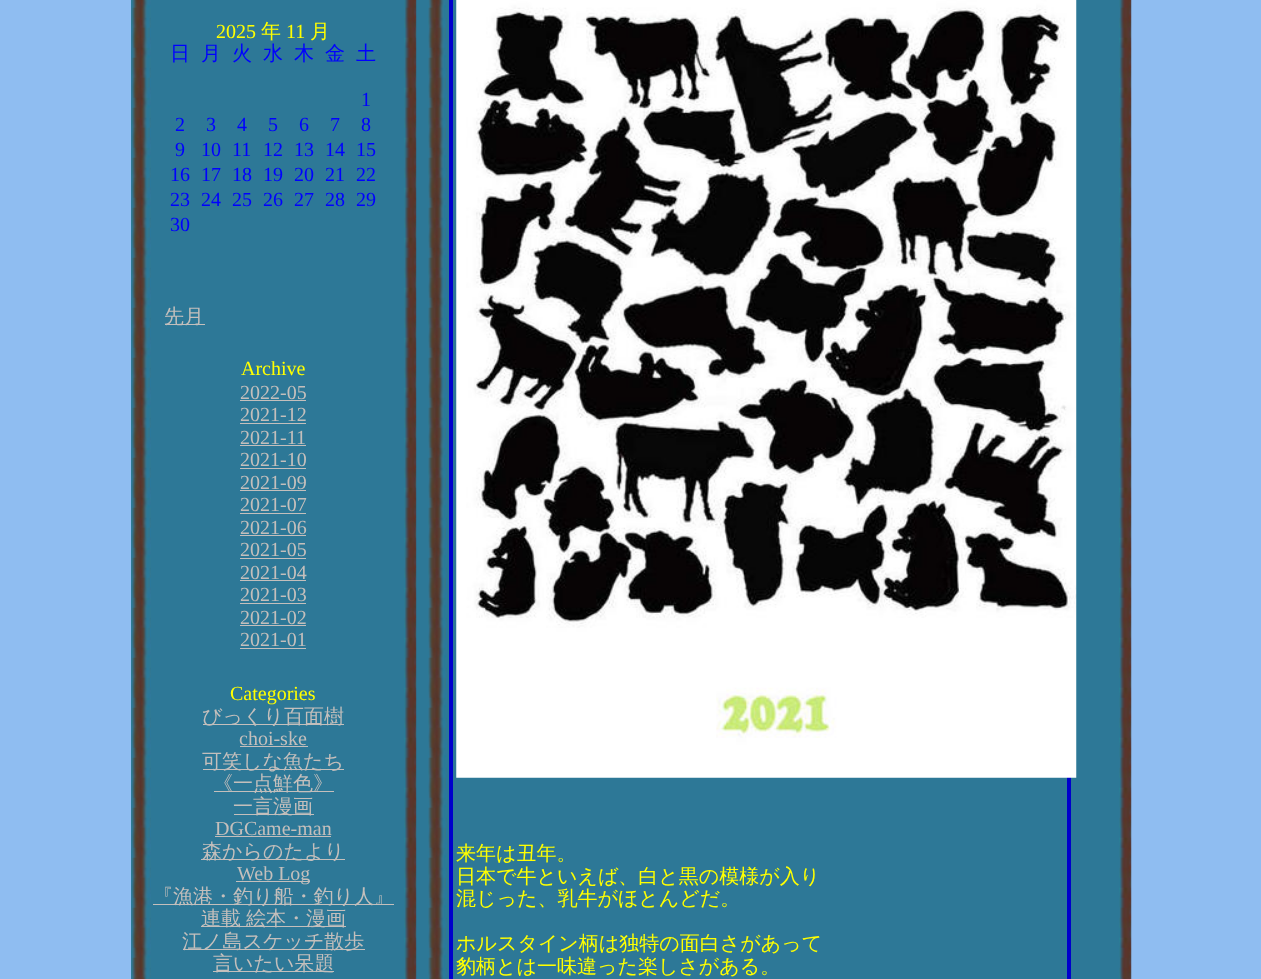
<!DOCTYPE html>
<meta charset="utf-8">
<style>body { margin: 0 } canvas { display: block }</style>
<canvas id="canvas" width="1261" height="979"></canvas>
<img id="img1" src="images/1.png" hidden>
<img id="img2" src="images/2.png" hidden>
<img id="img3" src="images/3.png" hidden>
<img id="img4" src="images/4.png" hidden>
<img id="img5" src="images/5.png" hidden>
<script>
window.onload = function () {
    const canvas = document.getElementById('canvas');
    const context = canvas.getContext('2d');
    context.miterLimit = 4;
    context.fontKerning = 'normal';

    context.fillStyle = 'rgb(143, 189, 241)';
    context.fillRect(0, 0, 1261, 979);
    context.fillStyle = 'rgb(45, 120, 151)';
    context.fillRect(131, 0, 988, 979);
    context.drawImage(document.getElementById('img1'), 131, 0, 20, 979);
    context.fillStyle = 'rgb(196, 191, 188)';
    context.fillRect(165, 324, 40, 1);
    context.fillRect(240, 400, 66, 1);
    context.fillRect(240, 423, 66, 1);
    context.fillRect(240, 445, 66, 1);
    context.fillRect(240, 468, 66, 1);
    context.fillRect(240, 490, 66, 1);
    context.fillRect(240, 513, 66, 1);
    context.fillRect(240, 535, 66, 1);
    context.fillRect(240, 558, 66, 1);
    context.fillRect(240, 580, 66, 1);
    context.fillRect(240, 603, 66, 1);
    context.fillRect(240, 625, 66, 1);
    context.fillRect(240, 648, 66, 1);
    context.fillRect(203, 724, 141, 1);
    context.fillRect(240, 746, 68, 1);
    context.fillRect(203, 769, 141, 1);
    context.fillRect(214, 791, 120, 1);
    context.fillRect(234, 814, 80, 1);
    context.fillRect(215, 836, 116, 1);
    context.fillRect(201, 859, 144, 1);
    context.fillRect(236, 881, 74, 1);
    context.fillRect(153, 904, 241, 1);
    context.fillRect(201, 926, 145, 1);
    context.fillRect(183, 949, 182, 1);
    context.fillRect(213, 971, 121, 1);
    context.drawImage(document.getElementById('img2'), 404, 0, 13, 979);
    context.drawImage(document.getElementById('img3'), 428, 0, 19, 979);
    context.strokeStyle = 'rgb(0, 0, 204)';
    context.lineWidth = 4;
    context.strokeRect(451, -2, 618, 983);
    context.drawImage(document.getElementById('img4'), 456, 0, 621, 778);
    context.drawImage(document.getElementById('img5'), 1119, 0, 13, 979);
    context.font = '20px Liberation Serif';
    context.fillStyle = 'rgb(255, 255, 0)';
    context.fillText('2025', 216, 38);
    context.font = '500 20px WenQuanYi Zen Hei';
    context.fillText('年', 261, 38);
    context.font = '20px Liberation Serif';
    context.fillText('11', 286, 38);
    context.font = '500 20px WenQuanYi Zen Hei';
    context.fillText('月', 310, 38);
    context.fillStyle = 'rgb(0, 0, 255)';
    context.fillText('日', 170, 60);
    context.fillText('月', 201, 60);
    context.fillText('火', 232, 60);
    context.fillText('水', 263, 60);
    context.fillText('木', 294, 60);
    context.fillText('金', 325, 60);
    context.fillText('土', 356, 60);
    context.font = '20px Liberation Serif';
    context.fillText('1', 361, 106);
    context.fillText('2', 175, 131);
    context.fillText('3', 206, 131);
    context.fillText('4', 237, 131);
    context.fillText('5', 268, 131);
    context.fillText('6', 299, 131);
    context.fillText('7', 330, 131);
    context.fillText('8', 361, 131);
    context.fillText('9', 175, 156);
    context.fillText('10', 201, 156);
    context.fillText('11', 232, 156);
    context.fillText('12', 263, 156);
    context.fillText('13', 294, 156);
    context.fillText('14', 325, 156);
    context.fillText('15', 356, 156);
    context.fillText('16', 170, 181);
    context.fillText('17', 201, 181);
    context.fillText('18', 232, 181);
    context.fillText('19', 263, 181);
    context.fillText('20', 294, 181);
    context.fillText('21', 325, 181);
    context.fillText('22', 356, 181);
    context.fillText('23', 170, 206);
    context.fillText('24', 201, 206);
    context.fillText('25', 232, 206);
    context.fillText('26', 263, 206);
    context.fillText('27', 294, 206);
    context.fillText('28', 325, 206);
    context.fillText('29', 356, 206);
    context.fillText('30', 170, 231);
    context.font = '500 20px WenQuanYi Zen Hei';
    context.fillStyle = 'rgb(196, 191, 188)';
    context.fillText('先月', 164, 323);
    context.font = '20px Liberation Serif';
    context.fillStyle = 'rgb(255, 255, 0)';
    context.fillText('Archive', 241, 375);
    context.fillStyle = 'rgb(196, 191, 188)';
    context.fillText('2022-05', 240, 399);
    context.fillText('2021-12', 240, 421);
    context.fillText('2021-11', 240, 444);
    context.fillText('2021-10', 240, 466);
    context.fillText('2021-09', 240, 489);
    context.fillText('2021-07', 240, 511);
    context.fillText('2021-06', 240, 534);
    context.fillText('2021-05', 240, 556);
    context.fillText('2021-04', 240, 579);
    context.fillText('2021-03', 240, 601);
    context.fillText('2021-02', 240, 624);
    context.fillText('2021-01', 240, 646);
    context.fillStyle = 'rgb(255, 255, 0)';
    context.fillText('Categories', 230, 700);
    context.font = '500 20px WenQuanYi Zen Hei';
    context.fillStyle = 'rgb(196, 191, 188)';
    context.fillText('びっくり百面樹', 202, 723);
    context.font = '20px Liberation Serif';
    context.fillText('choi-ske', 239, 745);
    context.font = '500 20px WenQuanYi Zen Hei';
    context.fillText('可笑しな魚たち', 202, 768);
    context.fillText('《一点鮮色》', 213, 790);
    context.fillText('一言漫画', 233, 813);
    context.font = '20px Liberation Serif';
    context.fillText('DGCame-man', 215, 835);
    context.font = '500 20px WenQuanYi Zen Hei';
    context.fillText('森からのたより', 202, 858);
    context.font = '20px Liberation Serif';
    context.fillText('Web Log', 237, 880);
    context.font = '500 20px WenQuanYi Zen Hei';
    context.fillText('『漁港・釣り船・釣り人』', 153, 903);
    context.fillText('連載', 201, 925);
    context.fillText('絵本・漫画', 246, 925);
    context.fillText('江ノ島スケッチ散歩', 182, 948);
    context.fillText('言いたい呆題', 213, 970);
    context.fillStyle = 'rgb(255, 255, 0)';
    context.fillText('来年は丑年。', 456, 860);
    context.fillText('日本で牛といえば、白と黒の模様が入り', 456, 883);
    context.fillText('混じった、乳牛がほとんどだ。', 456, 905);
    context.fillText('ホルスタイン柄は独特の面白さがあって', 456, 950);
    context.fillText('豹柄とは一味違った楽しさがある。', 456, 973);
};
</script>
